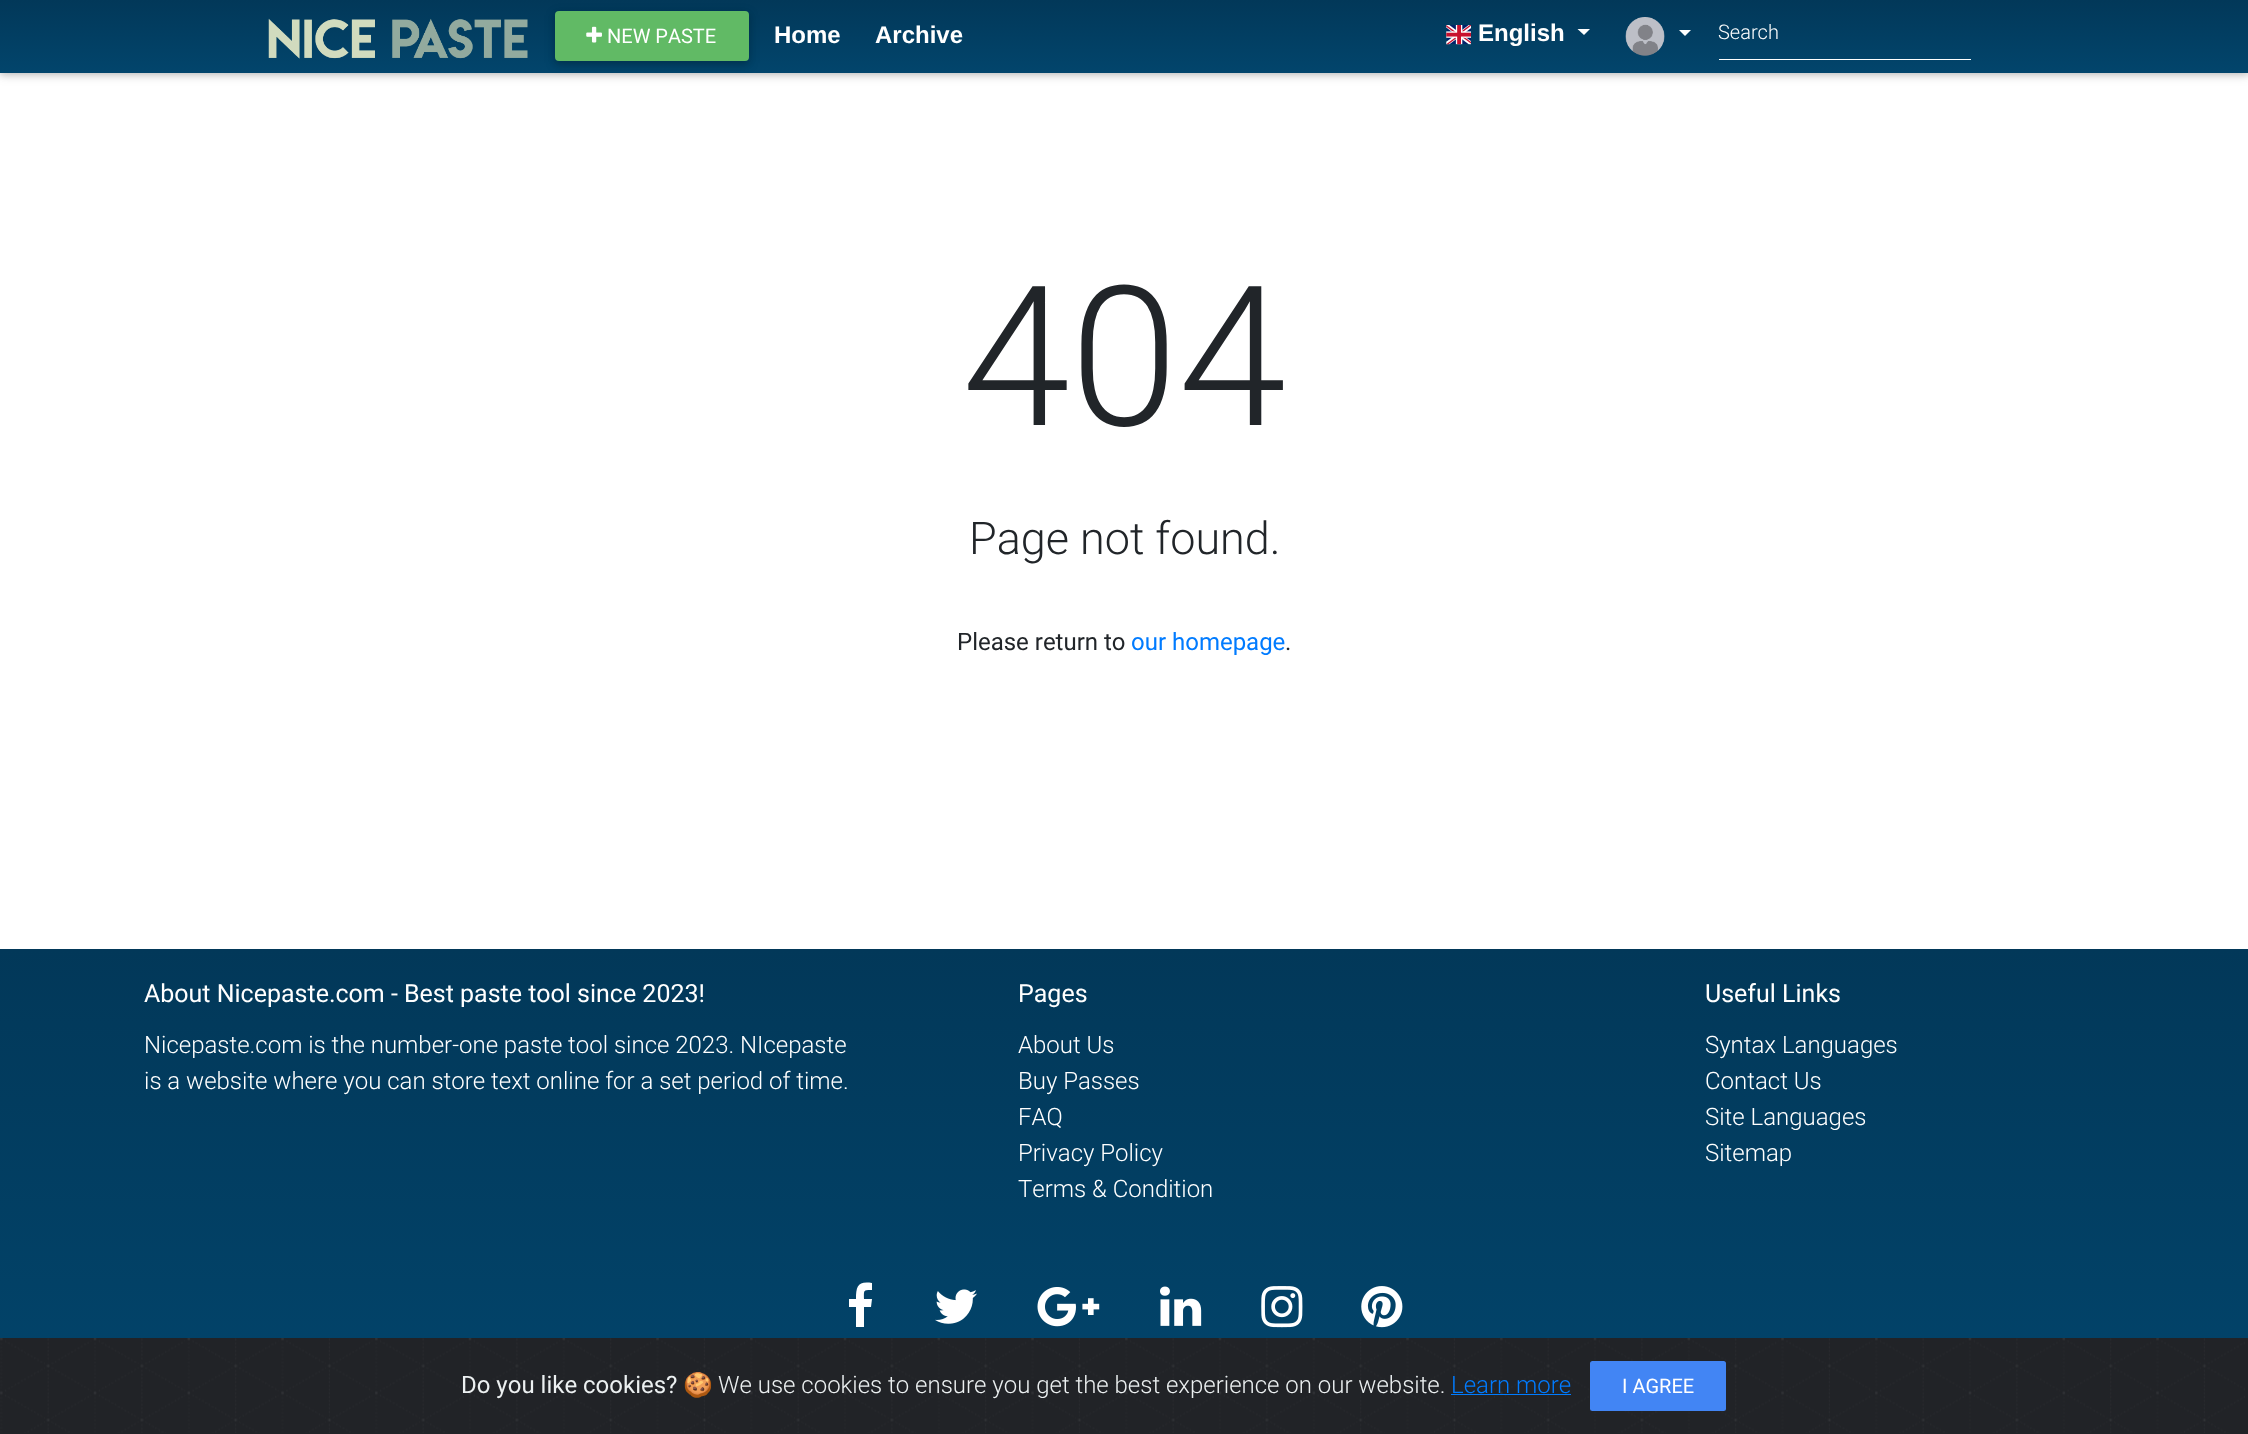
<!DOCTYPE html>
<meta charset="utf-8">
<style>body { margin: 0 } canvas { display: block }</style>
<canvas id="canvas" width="2248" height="1434"></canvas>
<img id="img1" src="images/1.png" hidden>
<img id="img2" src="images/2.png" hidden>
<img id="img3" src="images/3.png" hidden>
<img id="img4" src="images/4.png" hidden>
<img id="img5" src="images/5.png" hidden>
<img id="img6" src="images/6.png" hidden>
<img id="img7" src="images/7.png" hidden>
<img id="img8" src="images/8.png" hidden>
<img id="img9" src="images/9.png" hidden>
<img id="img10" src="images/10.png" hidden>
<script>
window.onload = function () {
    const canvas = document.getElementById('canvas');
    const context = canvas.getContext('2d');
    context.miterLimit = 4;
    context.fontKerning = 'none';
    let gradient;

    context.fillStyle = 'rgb(255, 255, 255)';
    context.fillRect(0, 0, 2248, 1434);
    context.fillStyle = 'rgba(0, 0, 0, 0.12)';
    context.filter = 'blur(6px)';
    context.beginPath();
    context.rect(0, 3, 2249, 72);
    context.fill();
    context.filter = 'none';
    context.fillStyle = 'rgba(0, 0, 0, 0.16)';
    context.filter = 'blur(3px)';
    context.beginPath();
    context.rect(0, 3, 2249, 72);
    context.fill();
    context.filter = 'none';
    gradient = context.createLinearGradient(1124, 0, 1124, 73);
    gradient.addColorStop(0, 'rgb(2, 56, 89)');
    gradient.addColorStop(1, 'rgb(2, 69, 108)');
    context.fillStyle = gradient;
    context.fillRect(0, 0, 2248, 73);
    context.drawImage(document.getElementById('img1'), 268, 18, 260, 41);
    context.fillStyle = 'rgba(0, 0, 0, 0.12)';
    context.filter = 'blur(6px)';
    context.beginPath();
    context.roundRect(555, 14, 194, 50, 4);
    context.fill();
    context.filter = 'none';
    context.fillStyle = 'rgba(0, 0, 0, 0.16)';
    context.filter = 'blur(3px)';
    context.beginPath();
    context.roundRect(555, 14, 194, 50, 4);
    context.fill();
    context.filter = 'none';
    context.fillStyle = 'rgb(97, 186, 101)';
    context.beginPath();
    context.roundRect(555, 11, 194, 50, 4);
    context.fill();
    context.drawImage(document.getElementById('img2'), 586, 26, 16, 17);
    context.drawImage(document.getElementById('img3'), 1446, 25, 25, 20);
    context.fillStyle = 'rgb(255, 255, 255)';
    context.beginPath();
    context.moveTo(1577.5, 29);
    context.lineTo(1590, 29);
    context.lineTo(1584, 35);
    context.closePath();
    context.fill();
    context.drawImage(document.getElementById('img4'), 1625, 17, 40, 39);
    context.beginPath();
    context.moveTo(1679, 30);
    context.lineTo(1691, 30);
    context.lineTo(1685, 36);
    context.closePath();
    context.fill();
    context.fillRect(1719, 59, 252, 1);
    gradient = context.createLinearGradient(1124, 949, 1124, 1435);
    gradient.addColorStop(0, 'rgb(2, 56, 89)');
    gradient.addColorStop(1, 'rgb(2, 69, 108)');
    context.fillStyle = gradient;
    context.fillRect(0, 949, 2248, 389);
    context.fillStyle = 'rgb(255, 255, 255)';
    context.beginPath();
    context.moveTo(872, 1283);
    context.lineTo(872, 1290);
    context.bezierCurveTo(863, 1290, 864, 1290, 864, 1299);
    context.lineTo(872, 1299);
    context.lineTo(871, 1307);
    context.lineTo(864, 1307);
    context.lineTo(864, 1327);
    context.lineTo(856, 1327);
    context.lineTo(856, 1307);
    context.lineTo(849, 1307);
    context.lineTo(849, 1299);
    context.lineTo(856, 1299);
    context.bezierCurveTo(856, 1286, 858, 1281, 872, 1283);
    context.closePath();
    context.fill();
    context.drawImage(document.getElementById('img5'), 935, 1289, 42, 35);
    context.drawImage(document.getElementById('img6'), 1037, 1287, 63, 40);
    context.drawImage(document.getElementById('img7'), 1160, 1286, 42, 40);
    context.drawImage(document.getElementById('img8'), 1261, 1286, 42, 42);
    context.drawImage(document.getElementById('img9'), 1361, 1286, 42, 42);
    context.fillStyle = 'rgb(33, 35, 39)';
    context.fillRect(0, 1338, 2248, 96);
    context.drawImage(document.getElementById('img10'), 0, 1338, 2245, 95);
    context.fillStyle = 'rgb(0, 123, 255)';
    context.fillRect(1451, 1394, 120, 1);
    context.fillStyle = 'rgb(66, 133, 244)';
    context.beginPath();
    context.roundRect(1590, 1361, 136, 50, 2.5);
    context.fill();
    context.font = '20px Roboto';
    context.fillStyle = 'rgb(255, 255, 255)';
    context.fillText('NEW PASTE', 607, 43);
    context.font = 'bold 24px Liberation Sans';
    context.fillText('Home', 774, 43);
    context.fillText('Archive', 875, 43);
    context.fillText('English', 1478, 41);
    context.font = '300 20px Roboto';
    context.fillText('Search', 1718, 39);
    context.font = '300 195px Roboto';
    context.fillStyle = 'rgb(33, 37, 41)';
    context.fillText('404', 962, 425);
    context.font = '300 45px Roboto';
    context.fillText('Page not found.', 969, 554);
    context.font = '24px Roboto';
    context.fillText('Please return to', 957, 650);
    context.fillStyle = 'rgb(0, 123, 255)';
    context.fillText('our homepage', 1131, 650);
    context.fillStyle = 'rgb(33, 37, 41)';
    context.fillText('.', 1285, 650);
    context.font = '25px Roboto';
    context.fillStyle = 'rgb(255, 255, 255)';
    context.fillText('About Nicepaste.com - Best paste tool since 2023!', 144, 1002);
    context.font = '300 24px Roboto';
    context.fillText('Nicepaste.com is the number-one paste tool since 2023. NIcepaste', 144, 1053);
    context.fillText('is a website where you can store text online for a set period of time.', 144, 1089);
    context.font = '25px Roboto';
    context.fillText('Pages', 1018, 1002);
    context.font = '300 24px Roboto';
    context.fillText('About Us', 1018, 1053);
    context.fillText('Buy Passes', 1018, 1089);
    context.fillText('FAQ', 1018, 1125);
    context.fillText('Privacy Policy', 1018, 1161);
    context.fillText('Terms & Condition', 1018, 1197);
    context.font = '25px Roboto';
    context.fillText('Useful Links', 1705, 1002);
    context.font = '300 24px Roboto';
    context.fillText('Syntax Languages', 1705, 1053);
    context.fillText('Contact Us', 1705, 1089);
    context.fillText('Site Languages', 1705, 1125);
    context.fillText('Sitemap', 1705, 1161);
    context.font = '24px Roboto';
    context.fillStyle = 'rgb(236, 240, 241)';
    context.fillText('Do you like cookies?', 461, 1393);
    context.font = '24px Noto Color Emoji';
    context.fillText('🍪', 683, 1393);
    context.font = '300 24px Roboto';
    context.fillText('We use cookies to ensure you get the best experience on our website.', 718, 1393);
    context.fillStyle = 'rgb(0, 123, 255)';
    context.fillText('Learn more', 1451, 1393);
    context.font = '20px Roboto';
    context.fillStyle = 'rgb(255, 255, 255)';
    context.fillText('I AGREE', 1622, 1393);
};
</script>
